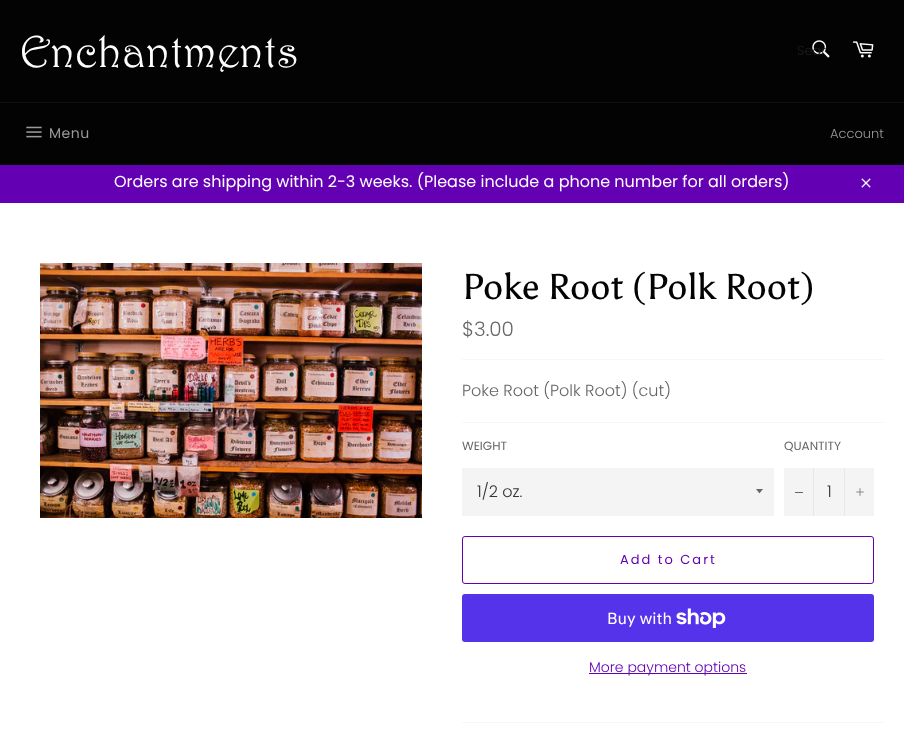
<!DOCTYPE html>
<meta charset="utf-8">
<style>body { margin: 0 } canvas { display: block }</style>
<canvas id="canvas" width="904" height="729"></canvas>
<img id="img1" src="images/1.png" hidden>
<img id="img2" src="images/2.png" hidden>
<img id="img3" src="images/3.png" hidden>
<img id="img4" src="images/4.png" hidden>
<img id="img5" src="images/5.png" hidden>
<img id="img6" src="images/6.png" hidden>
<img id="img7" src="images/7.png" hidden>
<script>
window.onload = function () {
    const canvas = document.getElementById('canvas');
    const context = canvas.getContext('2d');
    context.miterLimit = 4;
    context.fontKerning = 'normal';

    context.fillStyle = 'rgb(3, 3, 3)';
    context.fillRect(0, 0, 904, 729);
    context.drawImage(document.getElementById('img1'), 812, 40, 18, 18);
    context.drawImage(document.getElementById('img2'), 852, 41, 22, 17);
    context.fillStyle = 'rgb(16, 16, 16)';
    context.fillRect(0, 102, 904, 1);
    context.drawImage(document.getElementById('img3'), 26, 126, 16, 12);
    context.fillStyle = 'rgb(100, 0, 179)';
    context.fillRect(0, 165, 904, 38);
    context.drawImage(document.getElementById('img4'), 861, 178, 10, 10);
    context.fillStyle = 'rgb(255, 255, 255)';
    context.fillRect(0, 203, 904, 526);
    context.drawImage(document.getElementById('img5'), 40, 263, 382, 255);
    context.fillStyle = 'rgb(247, 247, 247)';
    context.fillRect(462, 359, 422, 1);
    context.fillRect(462, 422, 422, 1);
    context.fillStyle = 'rgb(244, 244, 244)';
    context.fillRect(462, 468, 312, 48);
    context.fillStyle = 'rgb(102, 102, 102)';
    context.beginPath();
    context.moveTo(756, 489);
    context.bezierCurveTo(760.5, 494.5, 758.5, 494.5, 763, 489);
    context.closePath();
    context.fill();
    context.fillStyle = 'rgb(244, 244, 244)';
    context.fillRect(784, 468, 90, 48);
    context.fillStyle = 'rgb(231, 231, 231)';
    context.fillRect(813, 468, 1, 48);
    context.fillStyle = 'rgb(102, 102, 102)';
    context.fillRect(795, 492, 8, 1);
    context.fillStyle = 'rgb(231, 231, 231)';
    context.fillRect(844, 468, 1, 48);
    context.drawImage(document.getElementById('img6'), 856, 488, 8, 8);
    context.beginPath();
    context.roundRect(462.5, 536.5, 411, 47, 2.5);
    context.strokeStyle = 'rgb(100, 0, 179)';
    context.stroke();
    context.fillStyle = 'rgb(84, 51, 235)';
    context.beginPath();
    context.roundRect(462, 594, 412, 48, 3);
    context.fill();
    context.drawImage(document.getElementById('img7'), 676, 608, 50, 20);
    context.fillStyle = 'rgb(100, 0, 179)';
    context.fillRect(589, 673, 158, 1);
    context.fillStyle = 'rgb(247, 247, 247)';
    context.fillRect(462, 722, 422, 1);
    context.font = '45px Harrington';
    context.fillStyle = 'rgb(255, 255, 255)';
    context.fillText('Enchantments', 20, 67);
    context.font = '300 13px Poppins';
    context.fillStyle = 'rgb(30, 30, 30)';
    context.fillText('Sear', 797, 55);
    context.letterSpacing = '0.5px';
    context.font = '14px Poppins';
    context.fillStyle = 'rgb(154, 154, 154)';
    context.fillText('Menu', 49, 138);
    context.letterSpacing = '0px';
    context.font = '300 13px Poppins';
    context.fillText('Account', 830, 138);
    context.font = '16px Poppins';
    context.fillStyle = 'rgb(255, 255, 255)';
    context.fillText('Orders are shipping within 2-3 weeks. (Please include a phone number for all orders)', 114, 187);
    context.font = '36px Asul';
    context.fillStyle = 'rgb(3, 3, 3)';
    context.fillText('Poke Root (Polk Root)', 462, 299);
    context.font = '300 20px Poppins';
    context.fillStyle = 'rgb(102, 102, 102)';
    context.fillText('$3.00', 462, 336);
    context.font = '300 16px Poppins';
    context.fillText('Poke Root (Polk Root) (cut)', 462, 396);
    context.font = '12px Poppins';
    context.fillText('WEIGHT', 462, 450);
    context.font = '300 16px Poppins';
    context.fillStyle = 'rgb(51, 51, 51)';
    context.fillText('1/2 oz.', 477, 497);
    context.font = '12px Poppins';
    context.fillStyle = 'rgb(102, 102, 102)';
    context.fillText('QUANTITY', 784, 450);
    context.font = '300 16px Poppins';
    context.fillStyle = 'rgb(51, 51, 51)';
    context.fillText('1', 827, 497);
    context.letterSpacing = '2px';
    context.font = '13px Poppins';
    context.fillStyle = 'rgb(100, 0, 179)';
    context.fillText('Add to Cart', 620, 564);
    context.letterSpacing = '0px';
    context.font = '16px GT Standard';
    context.fillStyle = 'rgb(255, 255, 255)';
    context.fillText('Buy with', 607, 624);
    context.font = '300 14px Poppins';
    context.fillStyle = 'rgb(100, 0, 179)';
    context.fillText('More payment options', 589, 672);
};
</script>
